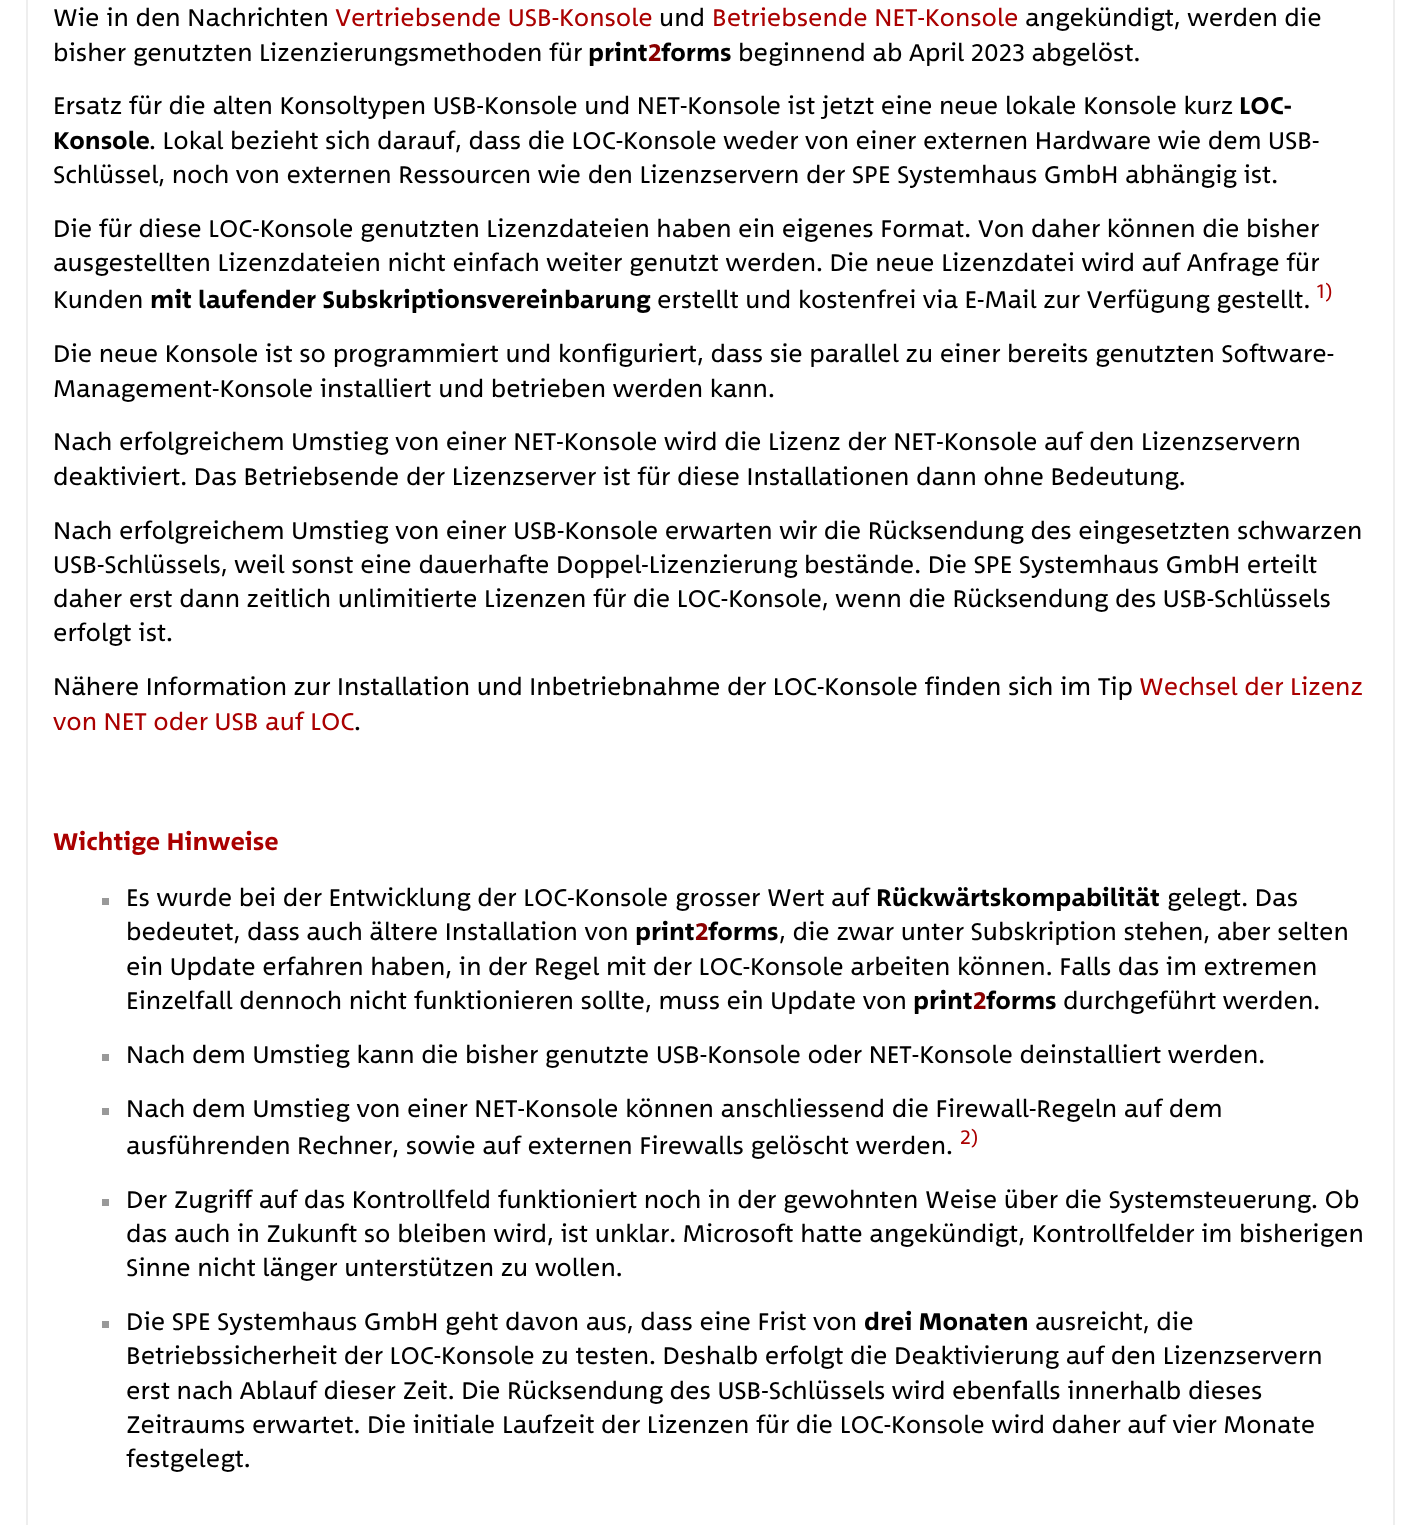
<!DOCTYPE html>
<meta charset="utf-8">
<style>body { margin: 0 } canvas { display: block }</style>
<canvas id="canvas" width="1421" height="1525"></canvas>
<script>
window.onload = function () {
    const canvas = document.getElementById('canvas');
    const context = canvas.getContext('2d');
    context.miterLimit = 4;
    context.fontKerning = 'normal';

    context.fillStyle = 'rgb(255, 255, 255)';
    context.fillRect(0, 0, 1421, 1525);
    context.strokeStyle = 'rgb(238, 238, 238)';
    context.lineWidth = 2;
    context.strokeRect(27, -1, 1367, 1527);
    context.fillStyle = 'rgb(153, 153, 153)';
    context.fillRect(102, 898, 7, 7);
    context.fillRect(102, 1054, 7, 7);
    context.fillRect(102, 1108, 7, 7);
    context.fillRect(102, 1199, 7, 7);
    context.fillRect(102, 1321, 7, 7);
    context.font = '24.5px "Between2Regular"';
    context.fillStyle = 'rgb(0, 0, 0)';
    context.fillText('Wie in den Nachrichten', 53, 26);
    context.fillStyle = 'rgb(170, 0, 0)';
    context.fillText('Vertriebsende USB-Konsole', 335, 26);
    context.fillStyle = 'rgb(0, 0, 0)';
    context.fillText('und', 659, 26);
    context.fillStyle = 'rgb(170, 0, 0)';
    context.fillText('Betriebsende NET-Konsole', 712, 26);
    context.fillStyle = 'rgb(0, 0, 0)';
    context.fillText('angekündigt, werden die', 1025, 26);
    context.fillText('bisher genutzten Lizenzierungsmethoden für', 53, 61);
    context.font = '24.5px "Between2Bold"';
    context.fillText('print', 588, 61);
    context.fillStyle = 'rgb(139, 0, 0)';
    context.fillText('2', 648, 61);
    context.fillStyle = 'rgb(0, 0, 0)';
    context.fillText('forms', 661, 61);
    context.font = '24.5px "Between2Regular"';
    context.fillText('beginnend ab April 2023 abgelöst.', 738, 61);
    context.fillText('Ersatz für die alten Konsoltypen USB-Konsole und NET-Konsole ist jetzt eine neue lokale Konsole kurz', 53, 114);
    context.font = '24.5px "Between2Bold"';
    context.fillText('LOC-', 1239, 114);
    context.fillText('Konsole', 53, 149);
    context.font = '24.5px "Between2Regular"';
    context.fillText('. Lokal bezieht sich darauf, dass die LOC-Konsole weder von einer externen Hardware wie dem USB-', 149, 149);
    context.fillText('Schlüssel, noch von externen Ressourcen wie den Lizenzservern der SPE Systemhaus GmbH abhängig ist.', 53, 183);
    context.fillText('Die für diese LOC-Konsole genutzten Lizenzdateien haben ein eigenes Format. Von daher können die bisher', 53, 237);
    context.fillText('ausgestellten Lizenzdateien nicht einfach weiter genutzt werden. Die neue Lizenzdatei wird auf Anfrage für', 53, 271);
    context.fillText('Kunden', 53, 308);
    context.font = '24.5px "Between2Bold"';
    context.fillText('mit laufender Subskriptionsvereinbarung', 150, 308);
    context.font = '24.5px "Between2Regular"';
    context.fillText('erstellt und kostenfrei via E-Mail zur Verfügung gestellt.', 657, 308);
    context.font = '20px "Between2Regular"';
    context.fillStyle = 'rgb(170, 0, 0)';
    context.fillText('1)', 1317, 298);
    context.font = '24.5px "Between2Regular"';
    context.fillStyle = 'rgb(0, 0, 0)';
    context.fillText('Die neue Konsole ist so programmiert und konfiguriert, dass sie parallel zu einer bereits genutzten Software-', 53, 362);
    context.fillText('Management-Konsole installiert und betrieben werden kann.', 53, 397);
    context.fillText('Nach erfolgreichem Umstieg von einer NET-Konsole wird die Lizenz der NET-Konsole auf den Lizenzservern', 53, 450);
    context.fillText('deaktiviert. Das Betriebsende der Lizenzserver ist für diese Installationen dann ohne Bedeutung.', 53, 485);
    context.fillText('Nach erfolgreichem Umstieg von einer USB-Konsole erwarten wir die Rücksendung des eingesetzten schwarzen', 53, 539);
    context.fillText('USB-Schlüssels, weil sonst eine dauerhafte Doppel-Lizenzierung bestände. Die SPE Systemhaus GmbH erteilt', 53, 573);
    context.fillText('daher erst dann zeitlich unlimitierte Lizenzen für die LOC-Konsole, wenn die Rücksendung des USB-Schlüssels', 53, 607);
    context.fillText('erfolgt ist.', 53, 641);
    context.fillText('Nähere Information zur Installation und Inbetriebnahme der LOC-Konsole finden sich im Tip', 53, 695);
    context.fillStyle = 'rgb(170, 0, 0)';
    context.fillText('Wechsel der Lizenz', 1139, 695);
    context.fillText('von NET oder USB auf LOC', 53, 730);
    context.fillStyle = 'rgb(0, 0, 0)';
    context.fillText('.', 354, 730);
    context.font = '24.5px "Between2Bold"';
    context.fillStyle = 'rgb(170, 0, 0)';
    context.fillText('Wichtige Hinweise', 53, 850);
    context.font = '24.5px "Between2Regular"';
    context.fillStyle = 'rgb(0, 0, 0)';
    context.fillText('Es wurde bei der Entwicklung der LOC-Konsole grosser Wert auf', 126, 906);
    context.font = '24.5px "Between2Bold"';
    context.fillText('Rückwärtskompabilität', 876, 906);
    context.font = '24.5px "Between2Regular"';
    context.fillText('gelegt. Das', 1167, 906);
    context.fillText('bedeutet, dass auch ältere Installation von', 126, 940);
    context.font = '24.5px "Between2Bold"';
    context.fillText('print', 635, 940);
    context.fillStyle = 'rgb(139, 0, 0)';
    context.fillText('2', 695, 940);
    context.fillStyle = 'rgb(0, 0, 0)';
    context.fillText('forms', 708, 940);
    context.font = '24.5px "Between2Regular"';
    context.fillText(', die zwar unter Subskription stehen, aber selten', 779, 940);
    context.fillText('ein Update erfahren haben, in der Regel mit der LOC-Konsole arbeiten können. Falls das im extremen', 126, 975);
    context.fillText('Einzelfall dennoch nicht funktionieren sollte, muss ein Update von', 126, 1009);
    context.font = '24.5px "Between2Bold"';
    context.fillText('print', 913, 1009);
    context.fillStyle = 'rgb(139, 0, 0)';
    context.fillText('2', 973, 1009);
    context.fillStyle = 'rgb(0, 0, 0)';
    context.fillText('forms', 986, 1009);
    context.font = '24.5px "Between2Regular"';
    context.fillText('durchgeführt werden.', 1063, 1009);
    context.fillText('Nach dem Umstieg kann die bisher genutzte USB-Konsole oder NET-Konsole deinstalliert werden.', 126, 1063);
    context.fillText('Nach dem Umstieg von einer NET-Konsole können anschliessend die Firewall-Regeln auf dem', 126, 1117);
    context.fillText('ausführenden Rechner, sowie auf externen Firewalls gelöscht werden.', 126, 1154);
    context.font = '20px "Between2Regular"';
    context.fillStyle = 'rgb(170, 0, 0)';
    context.fillText('2)', 960, 1144);
    context.font = '24.5px "Between2Regular"';
    context.fillStyle = 'rgb(0, 0, 0)';
    context.fillText('Der Zugriff auf das Kontrollfeld funktioniert noch in der gewohnten Weise über die Systemsteuerung. Ob', 126, 1208);
    context.fillText('das auch in Zukunft so bleiben wird, ist unklar. Microsoft hatte angekündigt, Kontrollfelder im bisherigen', 126, 1242);
    context.fillText('Sinne nicht länger unterstützen zu wollen.', 126, 1276);
    context.fillText('Die SPE Systemhaus GmbH geht davon aus, dass eine Frist von', 126, 1330);
    context.font = '24.5px "Between2Bold"';
    context.fillText('drei Monaten', 864, 1330);
    context.font = '24.5px "Between2Regular"';
    context.fillText('ausreicht, die', 1035, 1330);
    context.fillText('Betriebssicherheit der LOC-Konsole zu testen. Deshalb erfolgt die Deaktivierung auf den Lizenzservern', 126, 1364);
    context.fillText('erst nach Ablauf dieser Zeit. Die Rücksendung des USB-Schlüssels wird ebenfalls innerhalb dieses', 126, 1399);
    context.fillText('Zeitraums erwartet. Die initiale Laufzeit der Lizenzen für die LOC-Konsole wird daher auf vier Monate', 126, 1433);
    context.fillText('festgelegt.', 126, 1467);
};
</script>
